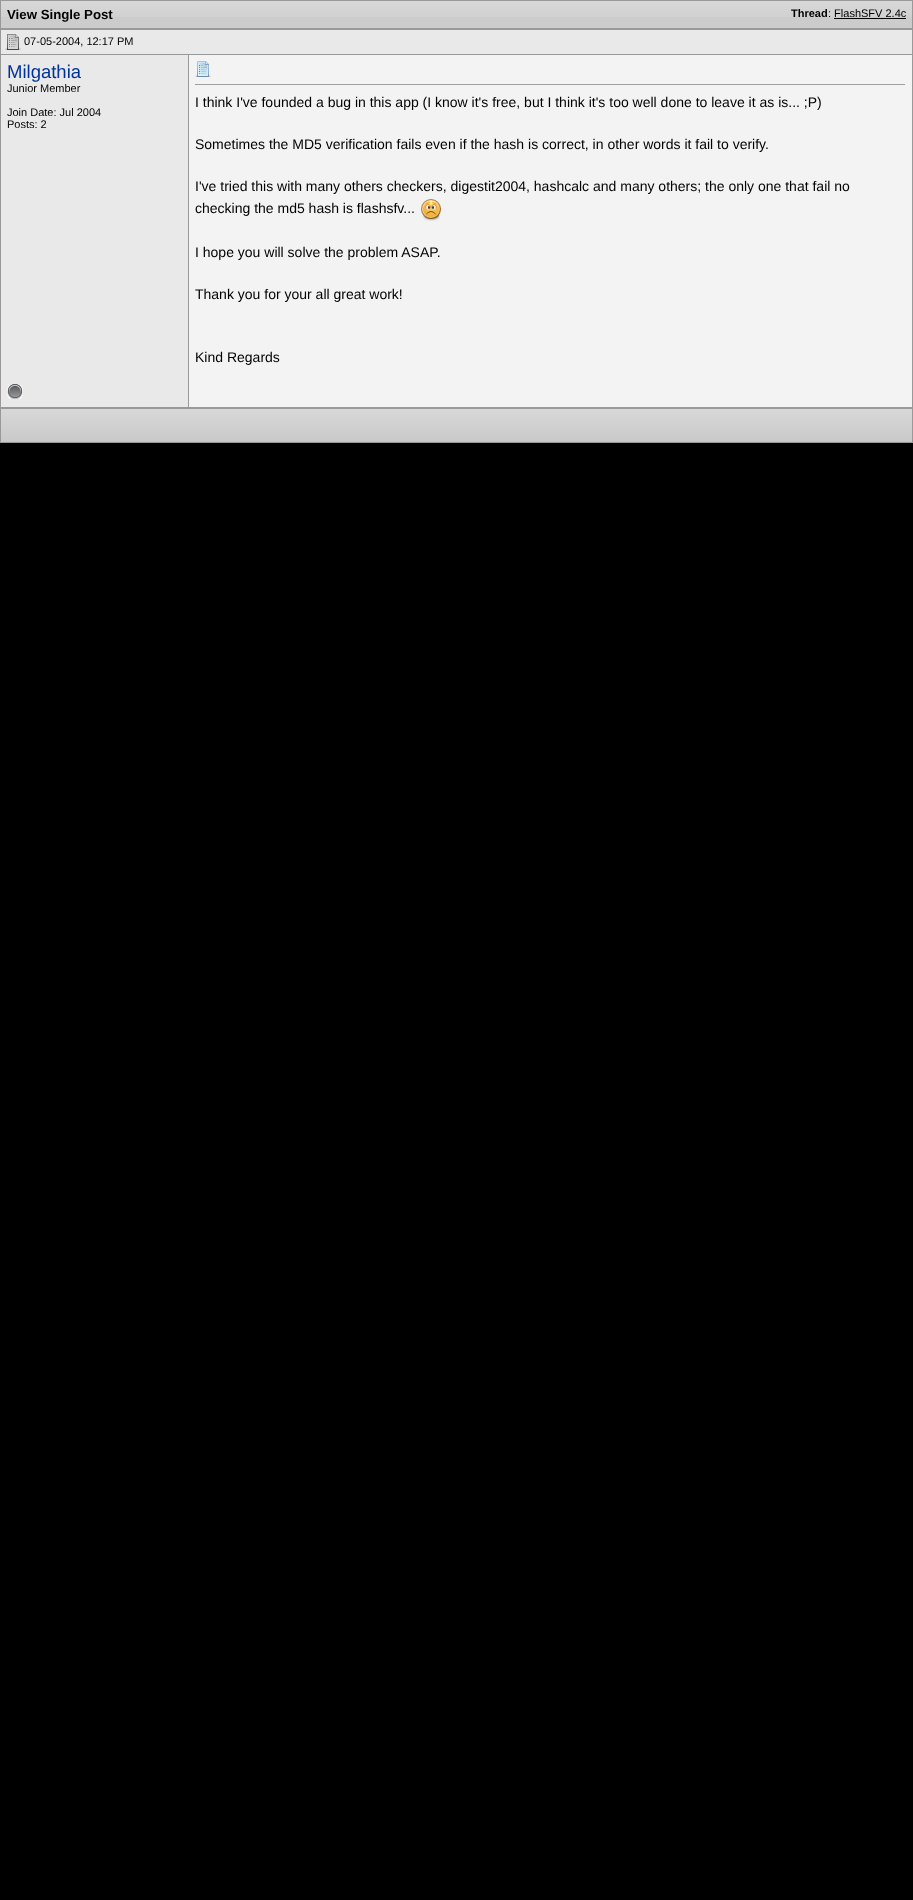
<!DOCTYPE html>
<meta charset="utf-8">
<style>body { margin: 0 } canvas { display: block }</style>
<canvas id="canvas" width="913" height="1900"></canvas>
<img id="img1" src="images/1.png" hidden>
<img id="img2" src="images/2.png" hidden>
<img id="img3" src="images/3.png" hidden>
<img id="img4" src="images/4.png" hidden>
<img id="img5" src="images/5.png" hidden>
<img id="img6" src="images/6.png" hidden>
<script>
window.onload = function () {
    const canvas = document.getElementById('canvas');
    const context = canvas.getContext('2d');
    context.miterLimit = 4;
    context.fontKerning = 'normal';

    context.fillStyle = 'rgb(0, 0, 0)';
    context.fillRect(0, 0, 913, 1900);
    context.fillStyle = 'rgb(153, 153, 153)';
    context.fillRect(0, 0, 913, 29);
    context.fillStyle = 'rgb(204, 204, 204)';
    context.fillRect(1, 17, 911, 11);
    context.drawImage(document.getElementById('img1'), 1, 1, 911, 16);
    context.fillStyle = 'rgb(0, 0, 0)';
    context.fillRect(834, 18, 72, 1);
    context.fillStyle = 'rgb(233, 233, 233)';
    context.fillRect(1, 30, 911, 24);
    context.fillStyle = 'rgb(153, 153, 153)';
    context.fillRect(0, 29, 913, 1);
    context.fillRect(0, 54, 189, 1);
    context.fillRect(0, 29, 1, 345);
    context.drawImage(document.getElementById('img2'), 5, 34, 16, 16);
    context.fillRect(912, 29, 1, 379);
    context.fillRect(189, 54, 724, 1);
    context.fillStyle = 'rgb(233, 233, 233)';
    context.fillRect(1, 55, 187, 352);
    context.fillStyle = 'rgb(153, 153, 153)';
    context.fillRect(188, 55, 1, 353);
    context.fillStyle = 'rgb(243, 243, 243)';
    context.fillRect(189, 55, 723, 352);
    context.drawImage(document.getElementById('img3'), 195, 61, 16, 16);
    context.fillStyle = 'rgb(159, 159, 159)';
    context.fillRect(195, 84, 711, 1);
    context.fillStyle = 'rgb(238, 238, 238)';
    context.fillRect(905, 84, 1, 1);
    context.drawImage(document.getElementById('img4'), 421, 199, 20, 22);
    context.fillStyle = 'rgb(153, 153, 153)';
    context.fillRect(0, 407, 913, 36);
    context.fillRect(0, 374, 1, 34);
    context.drawImage(document.getElementById('img5'), 7, 384, 16, 15);
    context.drawImage(document.getElementById('img6'), 1, 409, 911, 33);
    context.font = 'bold 13.25px Liberation Sans';
    context.fillStyle = 'rgb(0, 0, 0)';
    context.fillText('View Single Post', 7, 19);
    context.font = 'bold 11px Liberation Sans';
    context.fillText('Thread', 791, 17);
    context.font = '11px Liberation Sans';
    context.fillText(': FlashSFV 2.4c', 828, 17);
    context.fillText('07-05-2004, 12:17 PM', 24, 45);
    context.font = '18.5px Liberation Sans';
    context.fillStyle = 'rgb(0, 51, 153)';
    context.fillText('Milgathia', 7, 78);
    context.font = '11px Liberation Sans';
    context.fillStyle = 'rgb(0, 0, 0)';
    context.fillText('Junior Member', 7, 92);
    context.fillText('Join Date: Jul 2004', 7, 116);
    context.fillText('Posts: 2', 7, 128);
    context.font = '14px Liberation Sans';
    context.fillText('I think I\'ve founded a bug in this app (I know it\'s free, but I think it\'s too well done to leave it as is... ;P)', 195, 107);
    context.fillText('Sometimes the MD5 verification fails even if the hash is correct, in other words it fail to verify.', 195, 149);
    context.fillText('I\'ve tried this with many others checkers, digestit2004, hashcalc and many others; the only one that fail no', 195, 191);
    context.fillText('checking the md5 hash is flashsfv...', 195, 213);
    context.fillText('I hope you will solve the problem ASAP.', 195, 257);
    context.fillText('Thank you for your all great work!', 195, 299);
    context.fillText('Kind Regards', 195, 362);
};
</script>
